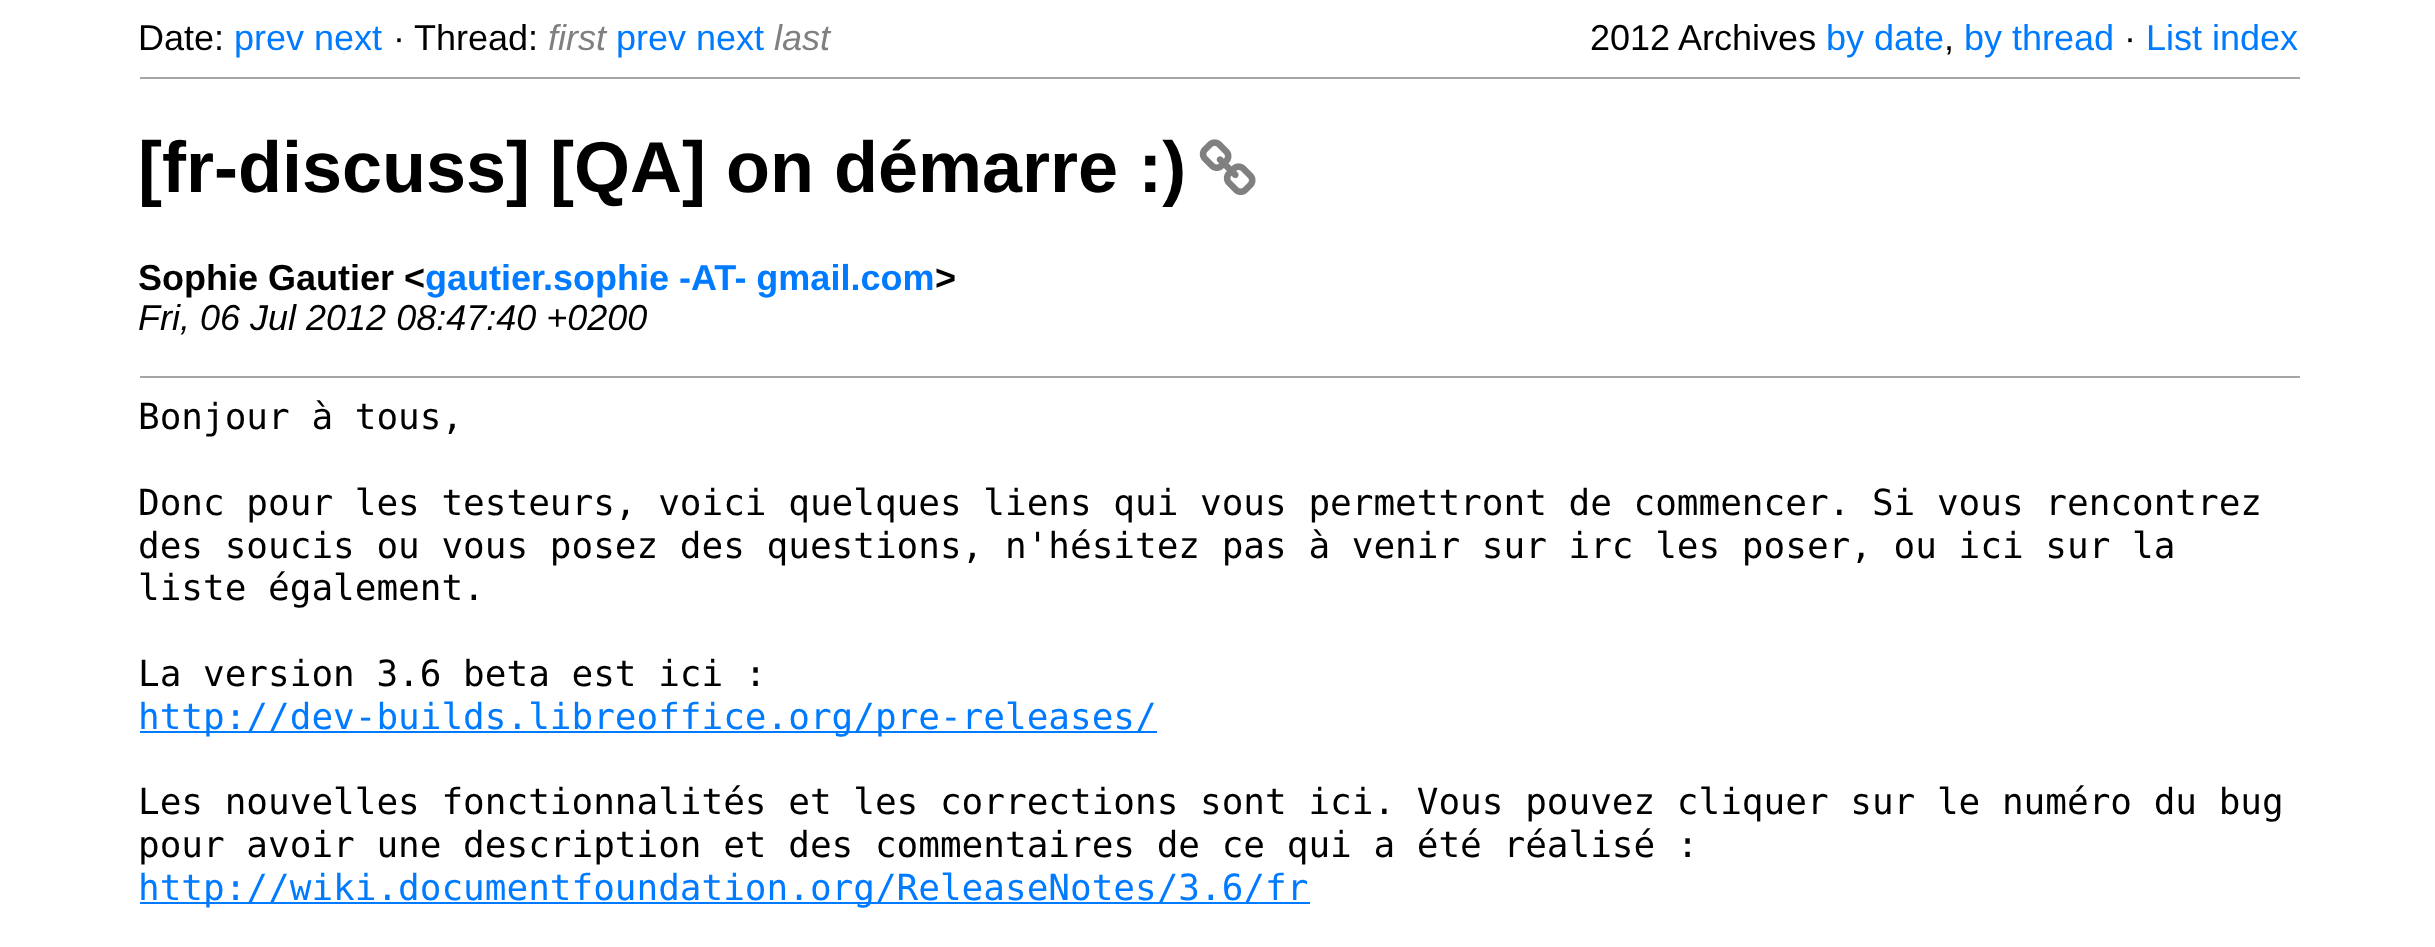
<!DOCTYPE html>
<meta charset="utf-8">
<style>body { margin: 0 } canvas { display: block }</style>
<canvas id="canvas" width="2435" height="947"></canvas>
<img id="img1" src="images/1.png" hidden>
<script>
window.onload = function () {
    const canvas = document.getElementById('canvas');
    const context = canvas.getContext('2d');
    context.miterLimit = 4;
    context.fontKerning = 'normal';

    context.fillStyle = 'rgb(255, 255, 255)';
    context.fillRect(0, 0, 2435, 947);
    context.fillStyle = 'rgb(166, 166, 166)';
    context.fillRect(140, 77, 2160, 2);
    context.drawImage(document.getElementById('img1'), 1199, 139, 57, 57);
    context.fillRect(140, 376, 2160, 2);
    context.fillStyle = 'rgb(0, 123, 255)';
    context.fillRect(140, 731, 1017, 2);
    context.fillRect(140, 902, 1170, 2);
    context.font = '36px Liberation Sans';
    context.fillStyle = 'rgb(0, 0, 0)';
    context.fillText('Date:', 138, 50);
    context.fillStyle = 'rgb(0, 123, 255)';
    context.fillText('prev next', 234, 50);
    context.fillStyle = 'rgb(0, 0, 0)';
    context.fillText('·', 393, 50);
    context.fillText('Thread:', 414, 50);
    context.font = 'italic 36px Liberation Sans';
    context.fillStyle = 'rgb(128, 128, 128)';
    context.fillText('first', 548, 50);
    context.font = '36px Liberation Sans';
    context.fillStyle = 'rgb(0, 123, 255)';
    context.fillText('prev next', 616, 50);
    context.font = 'italic 36px Liberation Sans';
    context.fillStyle = 'rgb(128, 128, 128)';
    context.fillText('last', 774, 50);
    context.font = '36px Liberation Sans';
    context.fillStyle = 'rgb(0, 0, 0)';
    context.fillText('2012 Archives', 1590, 50);
    context.fillStyle = 'rgb(0, 123, 255)';
    context.fillText('by date', 1826, 50);
    context.fillText('by thread', 1964, 50);
    context.fillStyle = 'rgb(0, 0, 0)';
    context.fillText('·', 2124, 50);
    context.fillStyle = 'rgb(0, 123, 255)';
    context.fillText('List index', 2146, 50);
    context.fillStyle = 'rgb(0, 0, 0)';
    context.fillText(',', 1944, 50);
    context.font = 'bold 72px Liberation Sans';
    context.fillText('[fr-discuss] [QA] on démarre :)', 138, 192);
    context.font = 'bold 36px Liberation Sans';
    context.fillText('Sophie Gautier <', 138, 290);
    context.fillStyle = 'rgb(0, 123, 255)';
    context.fillText('gautier.sophie -AT- gmail.com', 425, 290);
    context.fillStyle = 'rgb(0, 0, 0)';
    context.fillText('>', 935, 290);
    context.font = 'italic 36px Liberation Sans';
    context.fillText('Fri, 06 Jul 2012 08:47:40 +0200', 138, 330);
    context.font = '36px DejaVu Sans Mono';
    context.fillText('Bonjour à tous,', 138, 429);
    context.fillText('Donc pour les testeurs, voici quelques liens qui vous permettront de commencer. Si vous rencontrez', 138, 515);
    context.fillText('des soucis ou vous posez des questions, n\'hésitez pas à venir sur irc les poser, ou ici sur la', 138, 558);
    context.fillText('liste également.', 138, 600);
    context.fillText('La version 3.6 beta est ici :', 138, 686);
    context.fillStyle = 'rgb(0, 123, 255)';
    context.fillText('http://dev-builds.libreoffice.org/pre-releases/', 138, 729);
    context.fillStyle = 'rgb(0, 0, 0)';
    context.fillText('Les nouvelles fonctionnalités et les corrections sont ici. Vous pouvez cliquer sur le numéro du bug', 138, 814);
    context.fillText('pour avoir une description et des commentaires de ce qui a été réalisé :', 138, 857);
    context.fillStyle = 'rgb(0, 123, 255)';
    context.fillText('http://wiki.documentfoundation.org/ReleaseNotes/3.6/fr', 138, 900);
};
</script>
